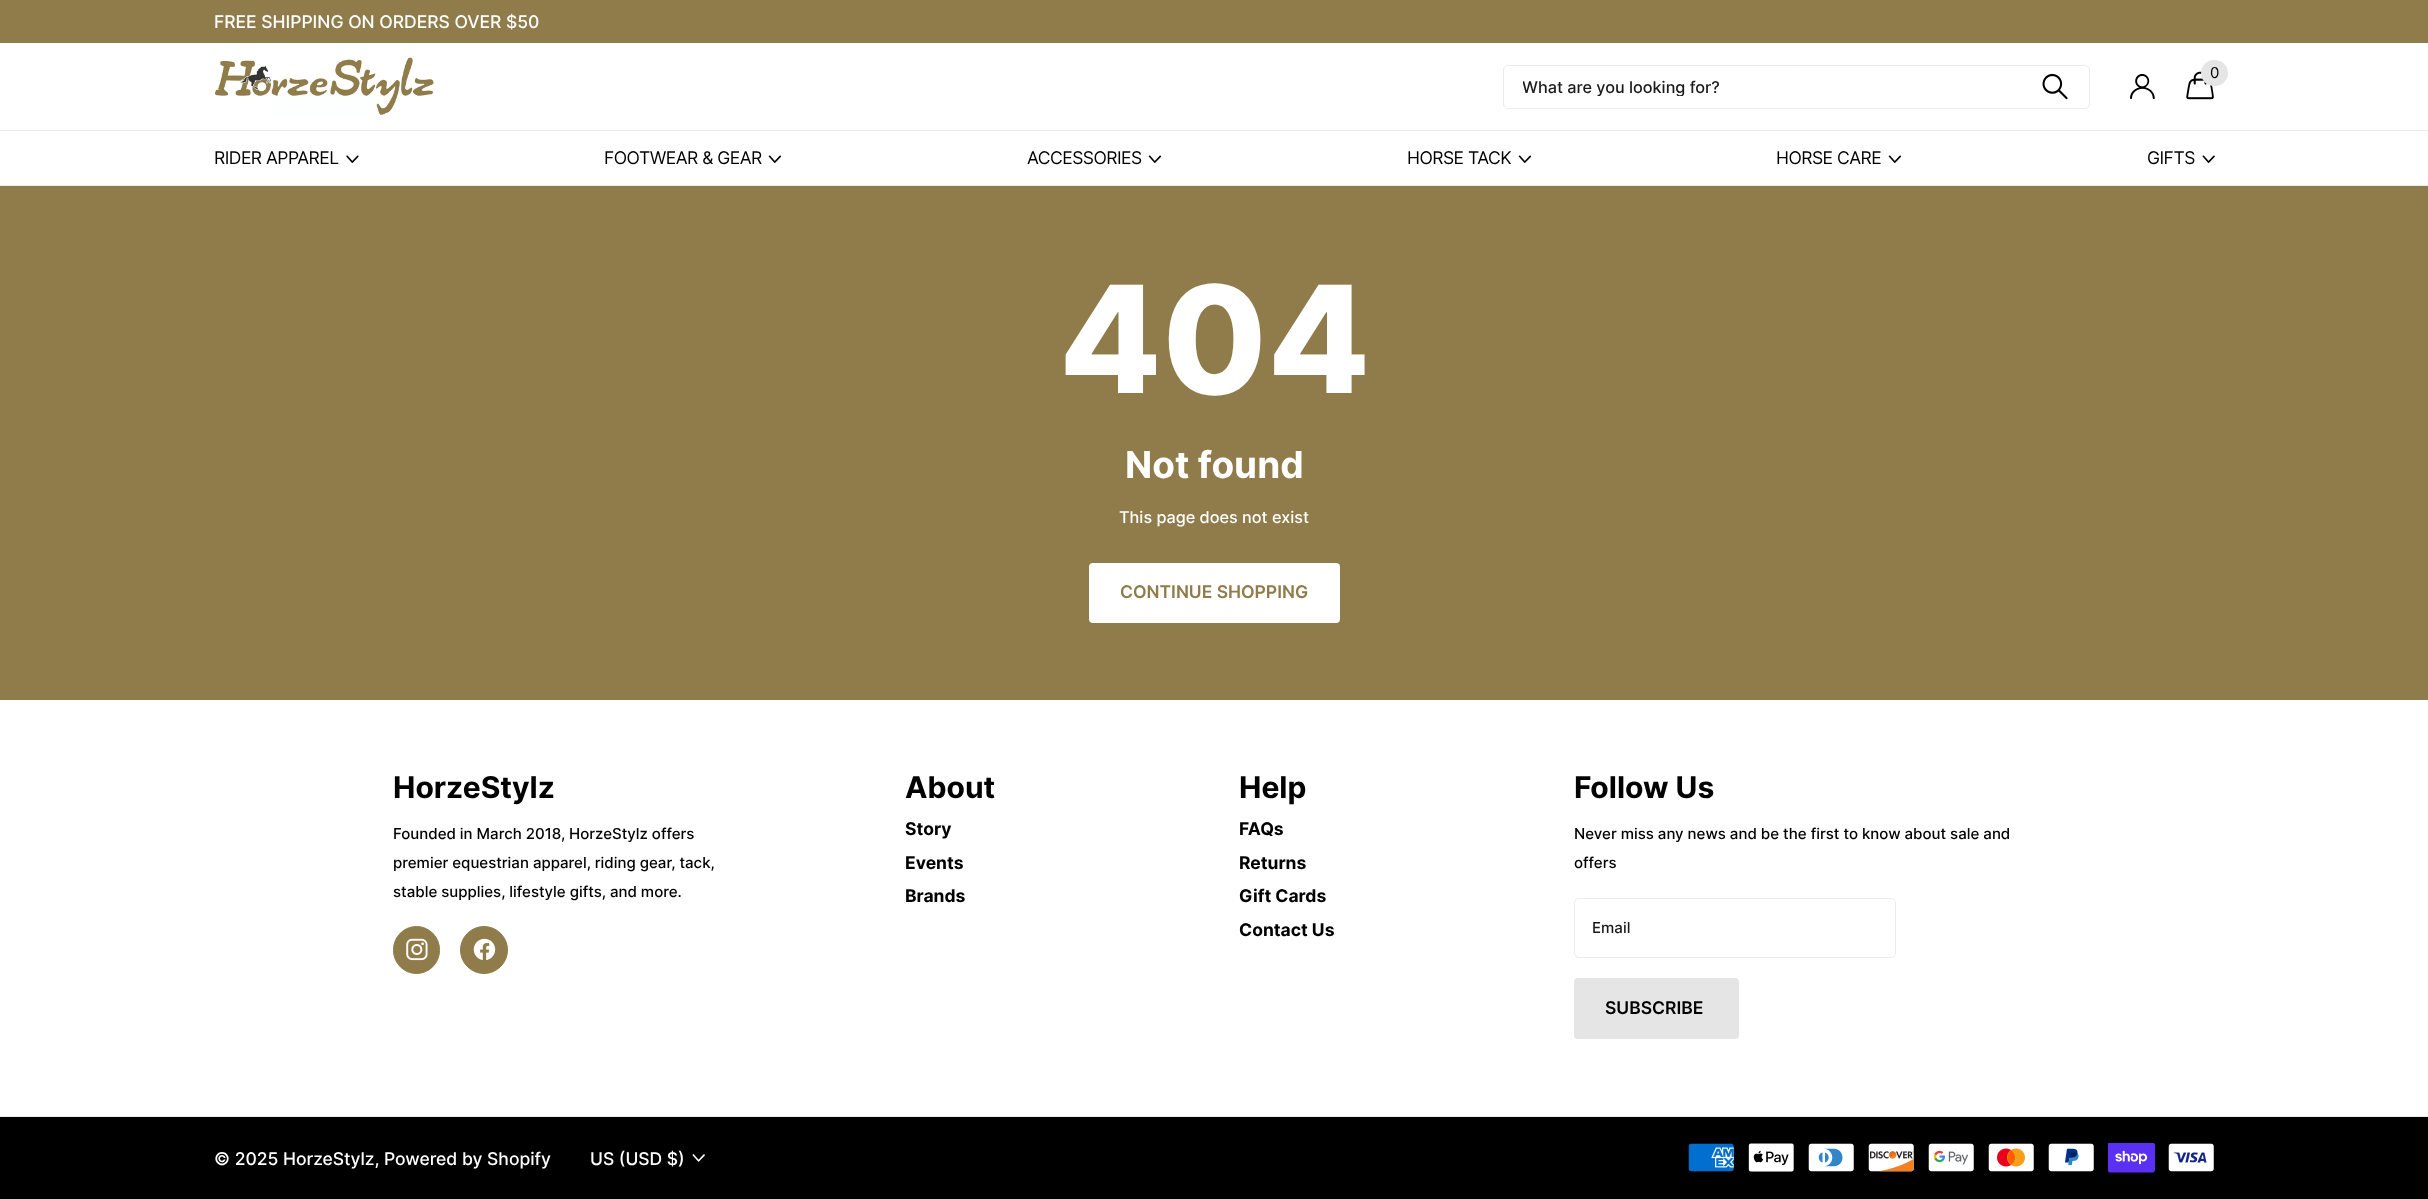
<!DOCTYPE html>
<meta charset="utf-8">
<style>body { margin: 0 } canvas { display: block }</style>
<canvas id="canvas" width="2428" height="1199"></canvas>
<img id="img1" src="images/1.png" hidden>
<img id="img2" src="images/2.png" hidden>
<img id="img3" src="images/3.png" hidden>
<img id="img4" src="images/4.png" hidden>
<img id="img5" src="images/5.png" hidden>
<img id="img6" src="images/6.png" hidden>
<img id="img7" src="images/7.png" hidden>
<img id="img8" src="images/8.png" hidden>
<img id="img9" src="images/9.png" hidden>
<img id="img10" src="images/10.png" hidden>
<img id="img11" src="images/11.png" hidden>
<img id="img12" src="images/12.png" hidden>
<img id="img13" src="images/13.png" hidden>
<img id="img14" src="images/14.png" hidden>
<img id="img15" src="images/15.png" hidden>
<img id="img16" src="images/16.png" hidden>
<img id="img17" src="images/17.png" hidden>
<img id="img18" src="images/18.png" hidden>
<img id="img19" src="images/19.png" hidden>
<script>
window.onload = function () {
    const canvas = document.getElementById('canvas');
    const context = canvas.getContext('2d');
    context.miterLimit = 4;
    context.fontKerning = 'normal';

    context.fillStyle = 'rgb(144, 124, 74)';
    context.fillRect(0, 0, 2428, 1199);
    context.fillStyle = 'rgb(255, 255, 255)';
    context.fillRect(0, 43, 2428, 142);
    context.fillStyle = 'rgb(236, 236, 236)';
    context.fillRect(0, 185, 2428, 1);
    context.drawImage(document.getElementById('img1'), 215, 57, 219, 58);
    context.drawImage(document.getElementById('img2'), 2130, 73, 25, 27);
    context.drawImage(document.getElementById('img3'), 2186, 71, 28, 29);
    context.fillStyle = 'rgb(229, 229, 229)';
    context.beginPath();
    context.roundRect(2201, 60, 27, 26, 13);
    context.fill();
    context.beginPath();
    context.roundRect(1503.5, 65.5, 586, 43, 4.5);
    context.strokeStyle = 'rgb(236, 236, 236)';
    context.stroke();
    context.drawImage(document.getElementById('img4'), 2042, 73, 26, 27);
    context.fillStyle = 'rgb(236, 236, 236)';
    context.fillRect(0, 130, 2428, 1);
    context.drawImage(document.getElementById('img5'), 346, 155, 13, 8);
    context.drawImage(document.getElementById('img6'), 768, 155, 14, 8);
    context.drawImage(document.getElementById('img6'), 1148, 155, 14, 8);
    context.drawImage(document.getElementById('img6'), 1518, 155, 14, 8);
    context.drawImage(document.getElementById('img6'), 1888, 155, 14, 8);
    context.drawImage(document.getElementById('img7'), 2202, 155, 13, 8);
    context.fillStyle = 'rgb(255, 255, 255)';
    context.beginPath();
    context.roundRect(1089, 563, 251, 60, 4);
    context.fill();
    context.fillRect(0, 700, 2428, 416);
    context.fillStyle = 'rgb(144, 124, 74)';
    context.beginPath();
    context.roundRect(393.5, 926.5, 46, 47, 23);
    context.fill();
    context.strokeStyle = 'rgb(144, 124, 74)';
    context.stroke();
    context.drawImage(document.getElementById('img8'), 406, 938, 22, 23);
    context.beginPath();
    context.arc(484, 950, 23.5, 0, 2 * Math.PI);
    context.fill();
    context.stroke();
    context.drawImage(document.getElementById('img9'), 473, 938, 23, 23);
    context.beginPath();
    context.roundRect(1574.5, 898.5, 321, 59, 4.5);
    context.strokeStyle = 'rgb(236, 236, 236)';
    context.stroke();
    context.fillStyle = 'rgb(229, 229, 229)';
    context.beginPath();
    context.roundRect(1574, 978, 165, 61, 4);
    context.fill();
    context.fillStyle = 'rgb(0, 0, 0)';
    context.fillRect(0, 1117, 2428, 82);
    context.fillStyle = 'rgb(236, 236, 236)';
    context.fillRect(0, 1116, 2428, 1);
    context.drawImage(document.getElementById('img10'), 692, 1154, 13, 8);
    context.drawImage(document.getElementById('img11'), 1688, 1143, 46, 29);
    context.drawImage(document.getElementById('img12'), 1748, 1143, 46, 29);
    context.drawImage(document.getElementById('img13'), 1808, 1143, 46, 29);
    context.drawImage(document.getElementById('img14'), 1868, 1143, 46, 29);
    context.drawImage(document.getElementById('img15'), 1928, 1143, 46, 29);
    context.drawImage(document.getElementById('img16'), 1988, 1143, 46, 29);
    context.drawImage(document.getElementById('img17'), 2048, 1143, 46, 29);
    context.drawImage(document.getElementById('img18'), 2108, 1143, 47, 30);
    context.drawImage(document.getElementById('img19'), 2168, 1143, 46, 29);
    context.font = '500 17.5px Inter';
    context.fillStyle = 'rgb(255, 255, 255)';
    context.fillText('FREE SHIPPING ON ORDERS OVER $50', 214, 28);
    context.font = '15px Inter';
    context.fillStyle = 'rgb(0, 0, 0)';
    context.fillText('0', 2210, 78);
    context.save();
    context.beginPath();
    context.rect(1523, 76, 497, 20);
    context.clip();
    context.font = '500 16.25px Inter';
    context.fillStyle = 'rgb(26, 26, 26)';
    context.fillText('What are you looking for?', 1522, 93);
    context.restore();
    context.letterSpacing = '-0.5px';
    context.font = '17.5px Inter';
    context.fillText('RIDER APPAREL', 214, 164);
    context.fillText('FOOTWEAR & GEAR', 604, 164);
    context.fillText('ACCESSORIES', 1027, 164);
    context.fillText('HORSE TACK', 1407, 164);
    context.fillText('HORSE CARE', 1776, 164);
    context.fillText('GIFTS', 2147, 164);
    context.letterSpacing = '0px';
    context.font = '800 149px Inter';
    context.fillStyle = 'rgb(255, 255, 255)';
    context.fillText('404', 1059, 393);
    context.font = 'bold 37px Inter';
    context.fillText('Not found', 1125, 478);
    context.font = '500 16.25px Inter';
    context.fillText('This page does not exist', 1119, 523);
    context.font = '600 17.5px Inter';
    context.fillStyle = 'rgb(144, 124, 74)';
    context.fillText('CONTINUE SHOPPING', 1120, 598);
    context.font = 'bold 30px Inter';
    context.fillStyle = 'rgb(0, 0, 0)';
    context.fillText('HorzeStylz', 393, 798);
    context.font = '500 15.05px Inter';
    context.fillText('Founded in March 2018, HorzeStylz offers', 393, 839);
    context.fillText('premier equestrian apparel, riding gear, tack,', 393, 868);
    context.fillText('stable supplies, lifestyle gifts, and more.', 393, 897);
    context.font = 'bold 30px Inter';
    context.fillText('About', 905, 798);
    context.font = 'bold 17.5px Inter';
    context.fillText('Story', 905, 835);
    context.fillText('Events', 905, 869);
    context.fillText('Brands', 905, 902);
    context.font = 'bold 30px Inter';
    context.fillText('Help', 1239, 798);
    context.font = 'bold 17.5px Inter';
    context.fillText('FAQs', 1239, 835);
    context.fillText('Returns', 1239, 869);
    context.fillText('Gift Cards', 1239, 902);
    context.fillText('Contact Us', 1239, 936);
    context.font = 'bold 30px Inter';
    context.fillText('Follow Us', 1574, 798);
    context.font = '500 15.05px Inter';
    context.fillText('Never miss any news and be the first to know about sale and', 1574, 839);
    context.fillText('offers', 1574, 868);
    context.fillStyle = 'rgb(26, 26, 26)';
    context.fillText('Email', 1592, 933);
    context.font = '600 17.5px Inter';
    context.fillStyle = 'rgb(0, 0, 0)';
    context.fillText('SUBSCRIBE', 1605, 1014);
    context.font = '500 17.5px Inter';
    context.fillStyle = 'rgb(255, 255, 255)';
    context.fillText('© 2025 HorzeStylz, Powered by Shopify', 214, 1165);
    context.fillText('US (USD $)', 590, 1165);
};
</script>
